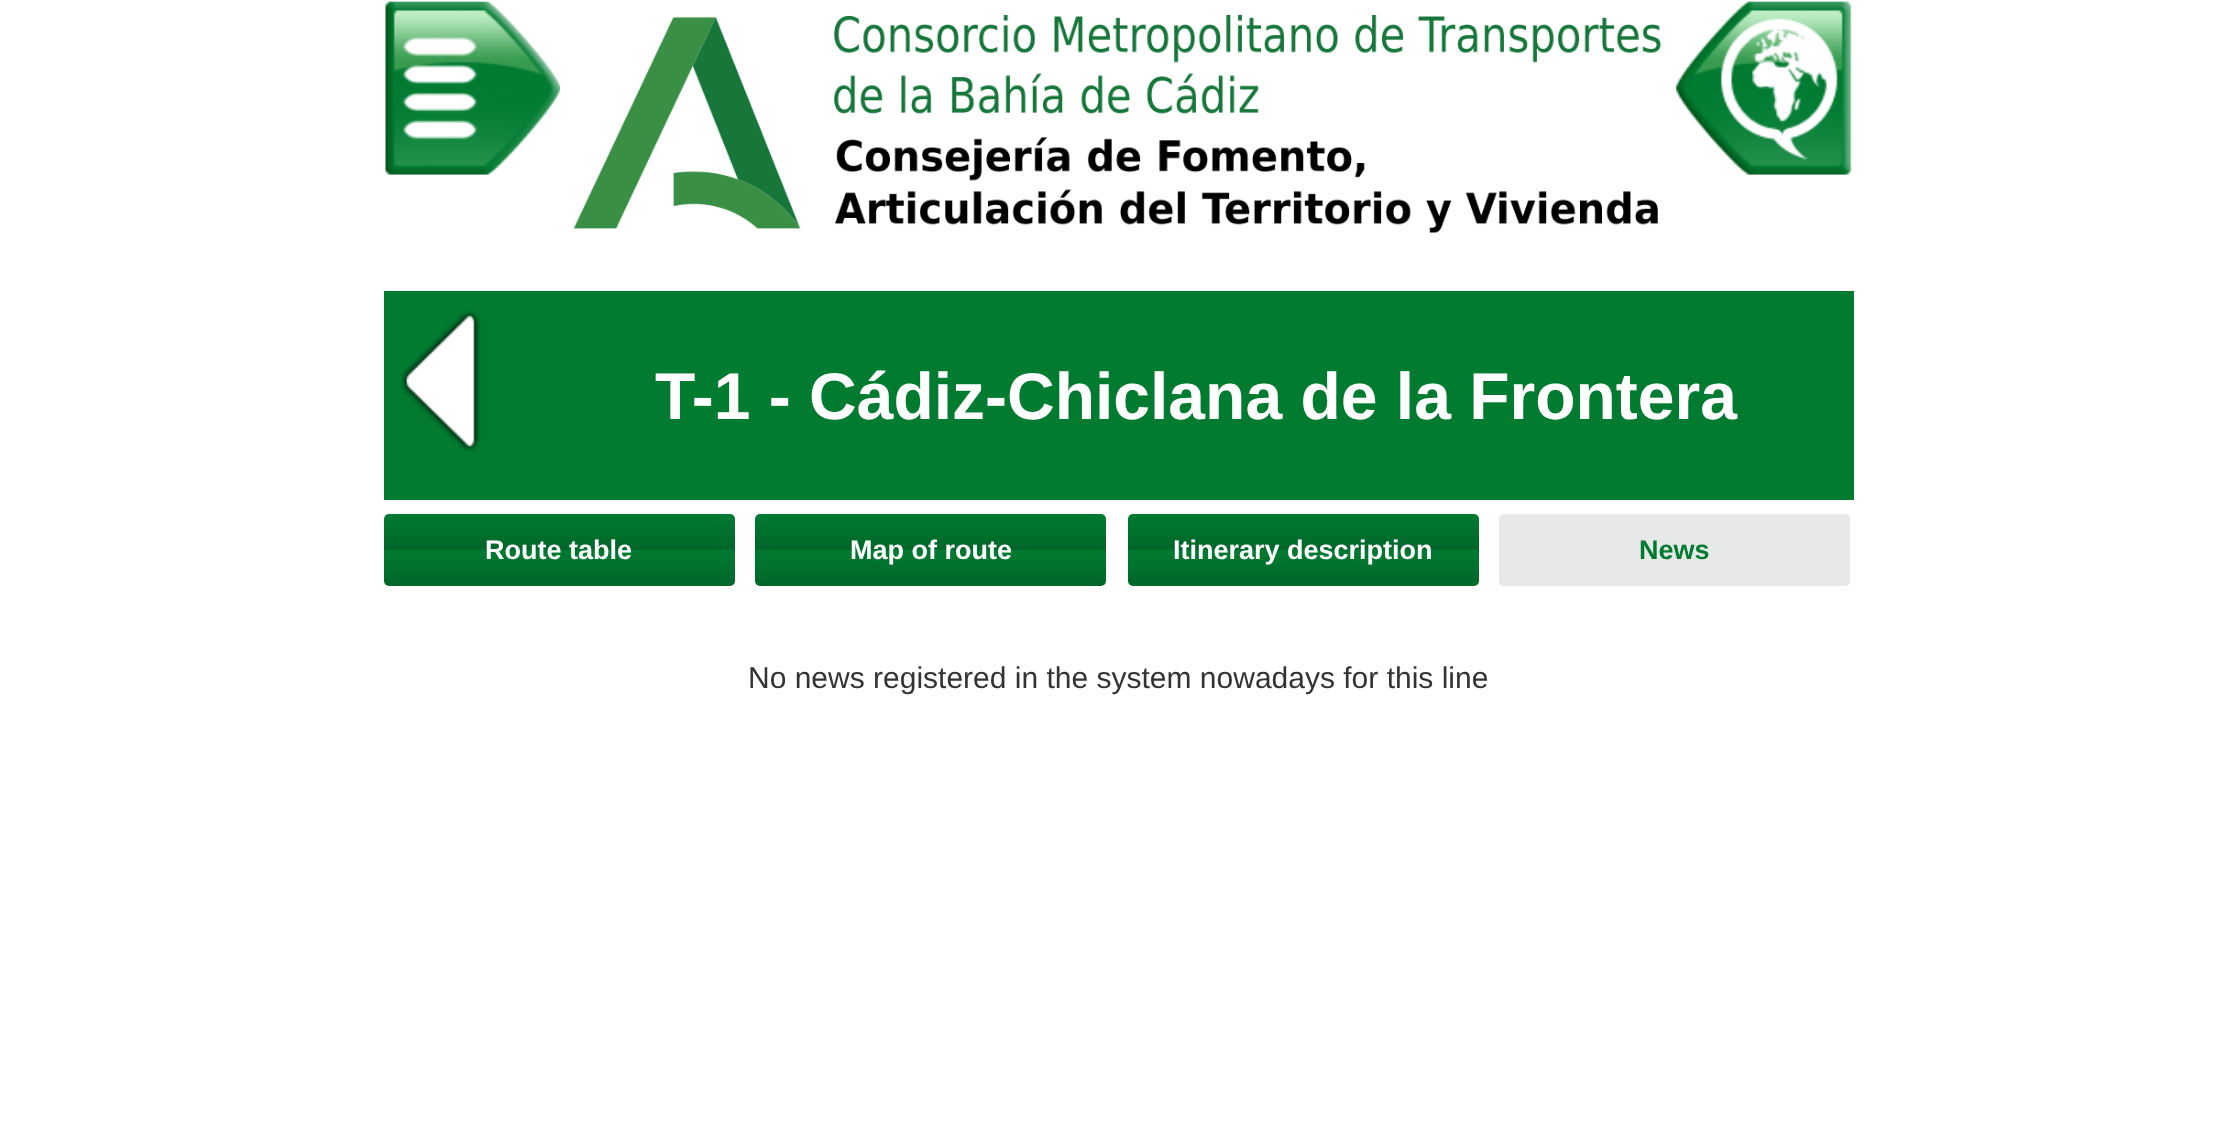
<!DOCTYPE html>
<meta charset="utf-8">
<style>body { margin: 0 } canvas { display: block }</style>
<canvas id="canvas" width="2236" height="1133"></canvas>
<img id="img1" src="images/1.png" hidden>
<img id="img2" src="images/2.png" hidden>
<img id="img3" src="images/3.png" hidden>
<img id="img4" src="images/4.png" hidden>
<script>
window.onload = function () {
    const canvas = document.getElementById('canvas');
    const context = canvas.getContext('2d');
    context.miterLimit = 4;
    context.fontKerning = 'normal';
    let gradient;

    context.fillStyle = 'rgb(255, 255, 255)';
    context.fillRect(0, 0, 2236, 1133);
    context.drawImage(document.getElementById('img1'), 385, 1, 175, 174);
    context.drawImage(document.getElementById('img2'), 573, 15, 1088, 218);
    context.drawImage(document.getElementById('img3'), 1676, 1, 176, 174);
    context.fillStyle = 'rgb(0, 123, 48)';
    context.fillRect(384, 291, 1470, 209);
    context.drawImage(document.getElementById('img4'), 400, 310, 81, 142);
    gradient = context.createLinearGradient(559, 514, 559, 586);
    gradient.addColorStop(0, 'rgb(0, 123, 49)');
    gradient.addColorStop(0.49, 'rgb(0, 102, 42)');
    gradient.addColorStop(0.51, 'rgb(0, 123, 49)');
    gradient.addColorStop(1, 'rgb(0, 102, 42)');
    context.fillStyle = gradient;
    context.beginPath();
    context.roundRect(384, 514, 351, 72, 5);
    context.fill();
    gradient = context.createLinearGradient(931, 514, 931, 586);
    gradient.addColorStop(0, 'rgb(0, 123, 49)');
    gradient.addColorStop(0.49, 'rgb(0, 102, 42)');
    gradient.addColorStop(0.51, 'rgb(0, 123, 49)');
    gradient.addColorStop(1, 'rgb(0, 102, 42)');
    context.fillStyle = gradient;
    context.beginPath();
    context.roundRect(755, 514, 351, 72, 5);
    context.fill();
    gradient = context.createLinearGradient(1303, 514, 1303, 586);
    gradient.addColorStop(0, 'rgb(0, 123, 49)');
    gradient.addColorStop(0.49, 'rgb(0, 102, 42)');
    gradient.addColorStop(0.51, 'rgb(0, 123, 49)');
    gradient.addColorStop(1, 'rgb(0, 102, 42)');
    context.fillStyle = gradient;
    context.beginPath();
    context.roundRect(1128, 514, 351, 72, 5);
    context.fill();
    context.fillStyle = 'rgb(230, 233, 231)';
    context.beginPath();
    context.roundRect(1499, 514, 351, 72, 5);
    context.fill();
    context.font = 'bold 66px Liberation Sans';
    context.fillStyle = 'rgb(255, 255, 255)';
    context.fillText('T-1 - Cádiz-Chiclana de la Frontera', 655, 419);
    context.font = 'bold 27px Liberation Sans';
    context.fillText('Route table', 485, 559);
    context.fillText('Map of route', 850, 559);
    context.fillText('Itinerary description', 1173, 559);
    context.fillStyle = 'rgb(0, 123, 49)';
    context.fillText('News', 1639, 559);
    context.font = '30px Liberation Sans';
    context.fillStyle = 'rgb(51, 51, 51)';
    context.fillText('No news registered in the system nowadays for this line', 748, 688);
};
</script>
